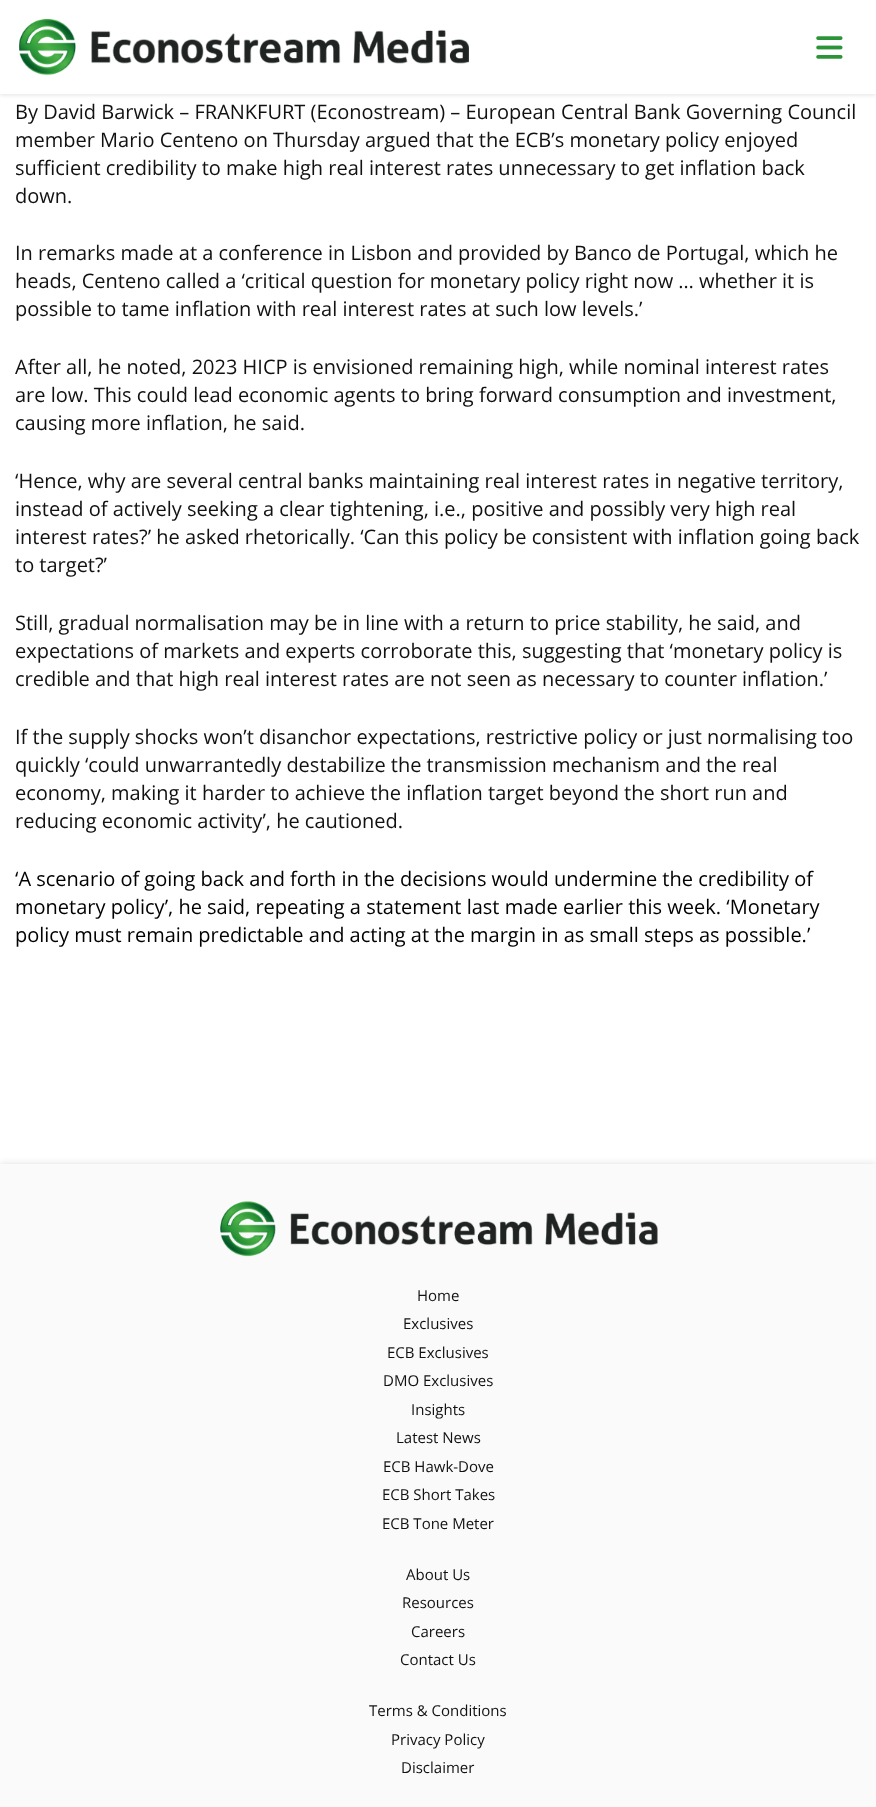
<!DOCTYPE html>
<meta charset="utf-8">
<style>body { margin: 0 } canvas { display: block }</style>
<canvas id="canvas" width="876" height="1807"></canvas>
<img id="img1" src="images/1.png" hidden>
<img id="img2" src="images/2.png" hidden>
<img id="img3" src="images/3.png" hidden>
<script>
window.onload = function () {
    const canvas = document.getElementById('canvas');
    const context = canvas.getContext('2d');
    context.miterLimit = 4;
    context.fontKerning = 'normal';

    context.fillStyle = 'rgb(255, 255, 255)';
    context.fillRect(0, 0, 876, 1807);
    context.fillStyle = 'rgba(0, 0, 0, 0.11)';
    context.filter = 'blur(2px)';
    context.beginPath();
    context.rect(0, 1, 876, 94);
    context.fill();
    context.filter = 'none';
    context.fillStyle = 'rgb(255, 255, 255)';
    context.fillRect(0, 0, 876, 94);
    context.drawImage(document.getElementById('img1'), 19, 19, 450, 56);
    context.drawImage(document.getElementById('img2'), 816, 36, 27, 23);
    context.fillStyle = 'rgba(0, 0, 0, 0.1)';
    context.filter = 'blur(3px)';
    context.beginPath();
    context.rect(0, 1163, 876, 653);
    context.fill();
    context.filter = 'none';
    context.fillStyle = 'rgb(250, 250, 250)';
    context.fillRect(0, 1164, 876, 643);
    context.drawImage(document.getElementById('img3'), 220, 1201, 438, 56);
    context.font = '20px Open Sans';
    context.fillStyle = 'rgb(17, 17, 17)';
    context.fillText('By David Barwick – FRANKFURT (Econostream) – European Central Bank Governing Council', 15, 119);
    context.fillText('member Mario Centeno on Thursday argued that the ECB’s monetary policy enjoyed', 15, 147);
    context.fillText('sufficient credibility to make high real interest rates unnecessary to get inflation back', 15, 175);
    context.fillText('down.', 15, 203);
    context.fillText('In remarks made at a conference in Lisbon and provided by Banco de Portugal, which he', 15, 260);
    context.fillText('heads, Centeno called a ‘critical question for monetary policy right now … whether it is', 15, 288);
    context.fillText('possible to tame inflation with real interest rates at such low levels.’', 15, 316);
    context.fillText('After all, he noted, 2023 HICP is envisioned remaining high, while nominal interest rates', 15, 374);
    context.fillText('are low. This could lead economic agents to bring forward consumption and investment,', 15, 402);
    context.fillText('causing more inflation, he said.', 15, 430);
    context.fillText('‘Hence, why are several central banks maintaining real interest rates in negative territory,', 15, 488);
    context.fillText('instead of actively seeking a clear tightening, i.e., positive and possibly very high real', 15, 516);
    context.fillText('interest rates?’ he asked rhetorically. ‘Can this policy be consistent with inflation going back', 15, 544);
    context.fillText('to target?’', 15, 572);
    context.fillText('Still, gradual normalisation may be in line with a return to price stability, he said, and', 15, 630);
    context.fillText('expectations of markets and experts corroborate this, suggesting that ‘monetary policy is', 15, 658);
    context.fillText('credible and that high real interest rates are not seen as necessary to counter inflation.’', 15, 686);
    context.fillText('If the supply shocks won’t disanchor expectations, restrictive policy or just normalising too', 15, 744);
    context.fillText('quickly ‘could unwarrantedly destabilize the transmission mechanism and the real', 15, 772);
    context.fillText('economy, making it harder to achieve the inflation target beyond the short run and', 15, 800);
    context.fillText('reducing economic activity’, he cautioned.', 15, 828);
    context.fillStyle = 'rgb(0, 0, 0)';
    context.fillText('‘A scenario of going back and forth in the decisions would undermine the credibility of', 15, 886);
    context.fillText('monetary policy’, he said, repeating a statement last made earlier this week. ‘Monetary', 15, 914);
    context.fillText('policy must remain predictable and acting at the margin in as small steps as possible.’', 15, 942);
    context.font = '15px Open Sans';
    context.fillStyle = 'rgb(17, 17, 17)';
    context.fillText('Home', 417, 1301);
    context.fillText('Exclusives', 403, 1329);
    context.fillText('ECB Exclusives', 387, 1358);
    context.fillText('DMO Exclusives', 383, 1386);
    context.fillText('Insights', 411, 1415);
    context.fillText('Latest News', 396, 1443);
    context.fillText('ECB Hawk-Dove', 383, 1472);
    context.fillText('ECB Short Takes', 382, 1500);
    context.fillText('ECB Tone Meter', 382, 1529);
    context.fillText('About Us', 406, 1580);
    context.fillText('Resources', 402, 1608);
    context.fillText('Careers', 411, 1637);
    context.fillText('Contact Us', 400, 1665);
    context.fillText('Terms & Conditions', 369, 1716);
    context.fillText('Privacy Policy', 391, 1745);
    context.fillText('Disclaimer', 401, 1773);
};
</script>
